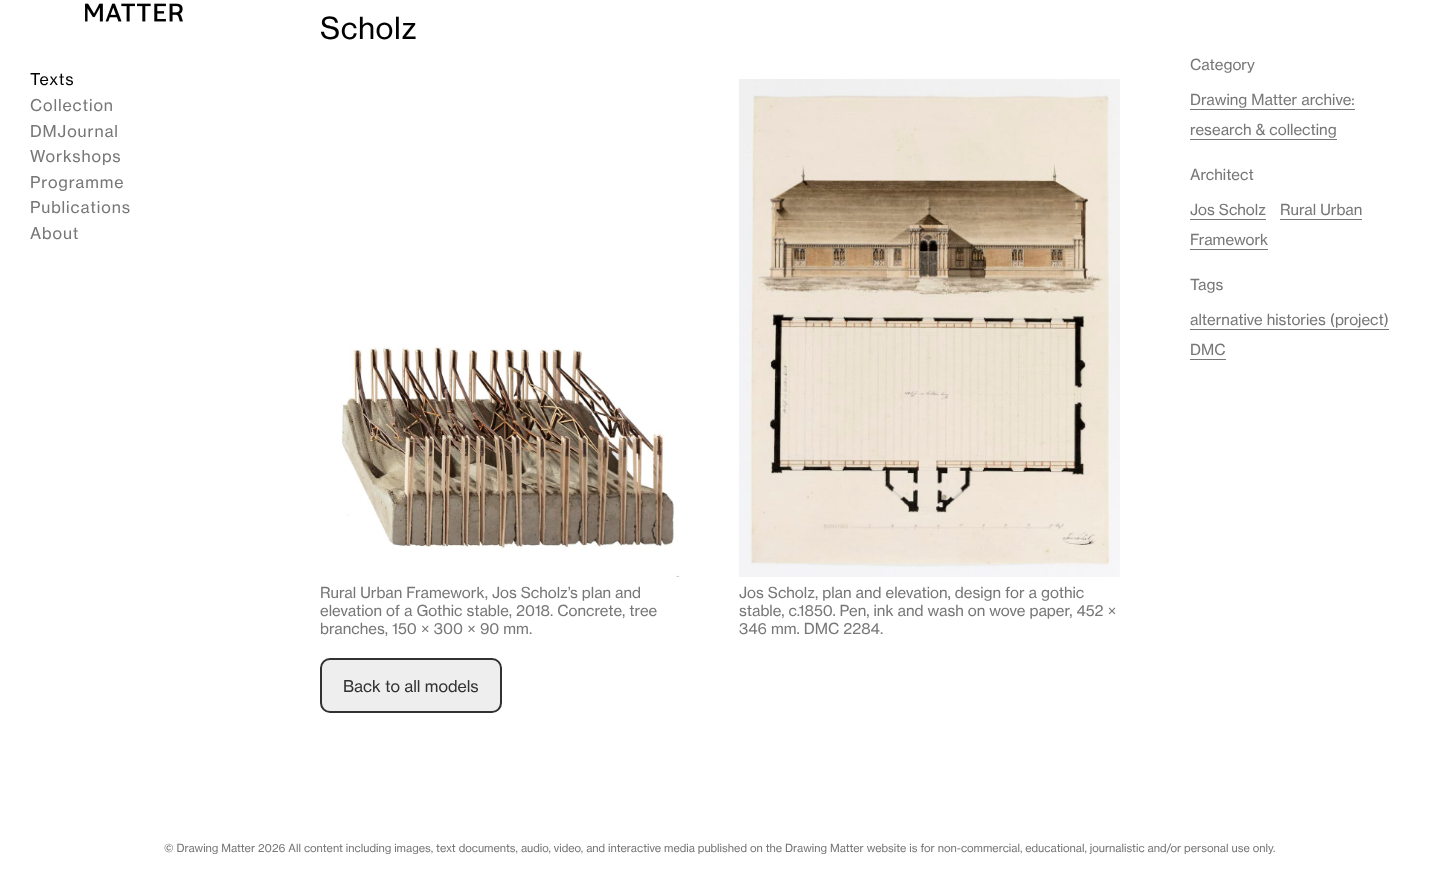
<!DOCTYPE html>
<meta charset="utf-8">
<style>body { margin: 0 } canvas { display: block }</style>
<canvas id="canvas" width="1440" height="885"></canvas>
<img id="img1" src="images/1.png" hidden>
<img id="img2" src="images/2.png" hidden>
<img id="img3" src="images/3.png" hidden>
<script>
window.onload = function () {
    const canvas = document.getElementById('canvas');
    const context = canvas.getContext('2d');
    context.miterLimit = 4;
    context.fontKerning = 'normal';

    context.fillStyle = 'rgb(255, 255, 255)';
    context.fillRect(0, 0, 1440, 885);
    context.drawImage(document.getElementById('img1'), 85, 3, 98, 19);
    context.drawImage(document.getElementById('img2'), 341, 347, 339, 230);
    context.drawImage(document.getElementById('img3'), 739, 79, 381, 498);
    context.fillStyle = 'rgb(238, 238, 238)';
    context.beginPath();
    context.roundRect(321, 659, 180, 53, 9);
    context.fill();
    context.strokeStyle = 'rgb(49, 49, 49)';
    context.lineWidth = 2;
    context.stroke();
    context.fillStyle = 'rgb(119, 119, 119)';
    context.fillRect(1190, 109, 165, 1);
    context.fillRect(1190, 139, 147, 1);
    context.fillRect(1190, 219, 76, 1);
    context.fillRect(1280, 219, 82, 1);
    context.fillRect(1190, 249, 78, 1);
    context.fillRect(1190, 329, 199, 1);
    context.fillRect(1190, 359, 36, 1);
    context.letterSpacing = '0.9px';
    context.font = '16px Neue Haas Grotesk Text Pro';
    context.fillStyle = 'rgb(0, 0, 0)';
    context.fillText('Texts', 30, 85);
    context.fillStyle = 'rgb(119, 119, 119)';
    context.fillText('Collection', 30, 111);
    context.fillText('DMJournal', 30, 137);
    context.fillText('Workshops', 30, 162);
    context.fillText('Programme', 30, 188);
    context.fillText('Publications', 30, 213);
    context.fillText('About', 30, 239);
    context.letterSpacing = '0.5px';
    context.font = '30px Neue Haas Grotesk Text Pro';
    context.fillStyle = 'rgb(0, 0, 0)';
    context.fillText('Scholz', 320, 39);
    context.letterSpacing = '0px';
    context.font = '15px Neue Haas Grotesk Text Pro';
    context.fillStyle = 'rgb(119, 119, 119)';
    context.fillText('Rural Urban Framework, Jos Scholz’s plan and', 320, 598);
    context.fillText('elevation of a Gothic stable, 2018. Concrete, tree', 320, 616);
    context.fillText('branches, 150 × 300 × 90 mm.', 320, 634);
    context.fillText('Jos Scholz, plan and elevation, design for a gothic', 739, 598);
    context.fillText('stable, c.1850. Pen, ink and wash on wove paper, 452 ×', 739, 616);
    context.fillText('346 mm. DMC 2284.', 739, 634);
    context.font = '16px Neue Haas Grotesk Text Pro';
    context.fillStyle = 'rgb(49, 49, 49)';
    context.fillText('Back to all models', 343, 692);
    context.font = '15px Neue Haas Grotesk Text Pro';
    context.fillStyle = 'rgb(119, 119, 119)';
    context.fillText('Category', 1190, 70);
    context.fillText('Drawing Matter archive:', 1190, 105);
    context.fillText('research & collecting', 1190, 135);
    context.fillText('Architect', 1190, 180);
    context.fillText('Jos Scholz', 1190, 215);
    context.fillText('Rural Urban', 1280, 215);
    context.fillText('Framework', 1190, 245);
    context.fillText('Tags', 1190, 290);
    context.fillText('alternative histories (project)', 1190, 325);
    context.fillText('DMC', 1190, 355);
    context.font = '11px Neue Haas Grotesk Text Pro';
    context.fillText('© Drawing Matter 2026 All content including images, text documents, audio, video, and interactive media published on the Drawing Matter website is for non-commercial, educational, journalistic and/or personal use only.', 164, 852);
};
</script>
